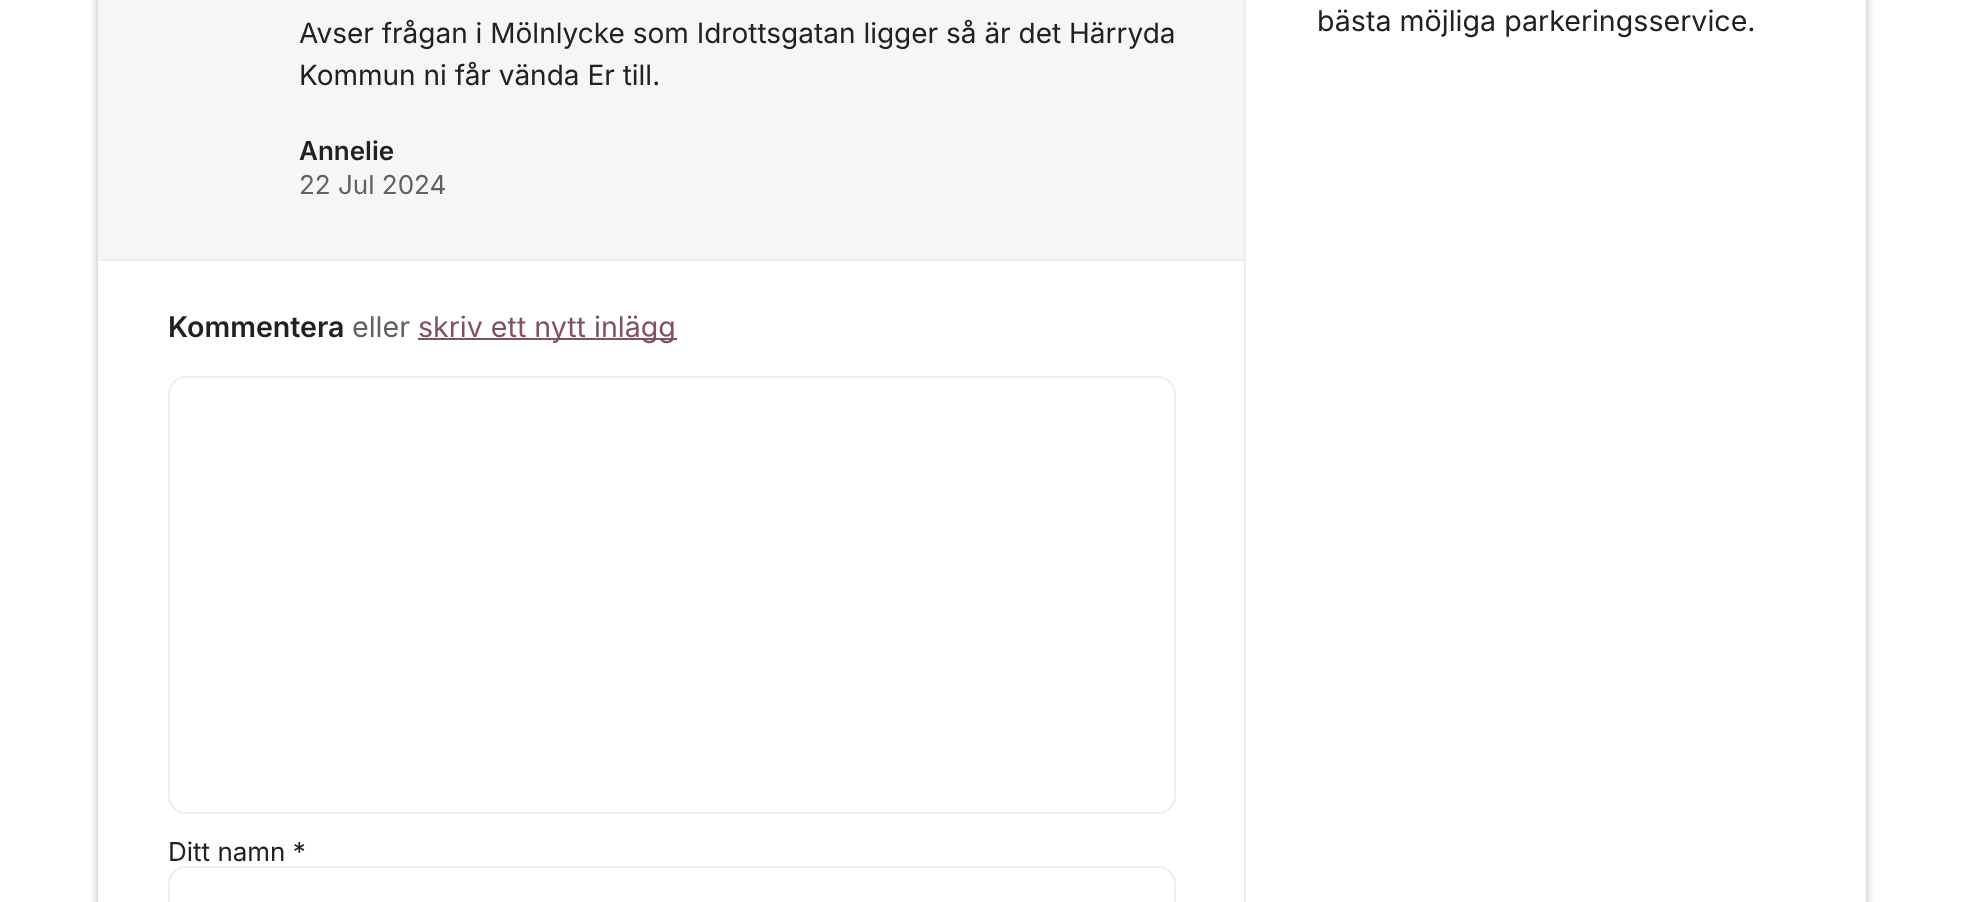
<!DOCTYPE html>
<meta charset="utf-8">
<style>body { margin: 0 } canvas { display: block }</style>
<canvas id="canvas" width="1963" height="902"></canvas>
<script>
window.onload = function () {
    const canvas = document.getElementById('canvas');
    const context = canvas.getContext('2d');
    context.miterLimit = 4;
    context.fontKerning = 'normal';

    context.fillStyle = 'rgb(255, 255, 255)';
    context.fillRect(0, 0, 1963, 902);
    context.fillStyle = 'rgba(0, 0, 0, 0.3)';
    context.filter = 'blur(5px)';
    context.beginPath();
    context.roundRect(98, -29, 1768, 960, 14);
    context.fill();
    context.filter = 'none';
    context.fillStyle = 'rgb(255, 255, 255)';
    context.fillRect(98, 0, 1768, 902);
    context.fillStyle = 'rgb(246, 246, 246)';
    context.fillRect(98, 0, 1146, 259);
    context.fillStyle = 'rgb(238, 238, 238)';
    context.fillRect(98, 259, 1148, 2);
    context.fillStyle = 'rgb(129, 80, 100)';
    context.fillRect(418, 338, 259, 2);
    context.beginPath();
    context.roundRect(169, 377, 1006, 436, 17);
    context.strokeStyle = 'rgb(238, 238, 238)';
    context.lineWidth = 2;
    context.stroke();
    context.beginPath();
    context.roundRect(169, 867, 1006, 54, 17);
    context.stroke();
    context.fillStyle = 'rgb(238, 238, 238)';
    context.fillRect(1244, 0, 2, 902);
    context.font = '28px Inter';
    context.fillStyle = 'rgb(33, 33, 33)';
    context.fillText('Avser frågan i Mölnlycke som Idrottsgatan ligger så är det Härryda', 299, 43);
    context.fillText('Kommun ni får vända Er till.', 299, 85);
    context.font = '600 26px Inter';
    context.fillText('Annelie', 299, 160);
    context.font = '26px Inter';
    context.fillStyle = 'rgb(97, 97, 97)';
    context.fillText('22 Jul 2024', 299, 194);
    context.font = '600 28.6px Inter';
    context.fillStyle = 'rgb(33, 33, 33)';
    context.fillText('Kommentera', 168, 337);
    context.font = '28.6px Inter';
    context.fillStyle = 'rgb(97, 97, 97)';
    context.fillText('eller', 352, 337);
    context.fillStyle = 'rgb(129, 80, 100)';
    context.fillText('skriv ett nytt inlägg', 418, 337);
    context.font = '26px Inter';
    context.fillStyle = 'rgb(33, 33, 33)';
    context.fillText('Ditt namn *', 168, 861);
    context.font = '28.6px Inter';
    context.fillText('bästa möjliga parkeringsservice.', 1317, 31);
};
</script>
